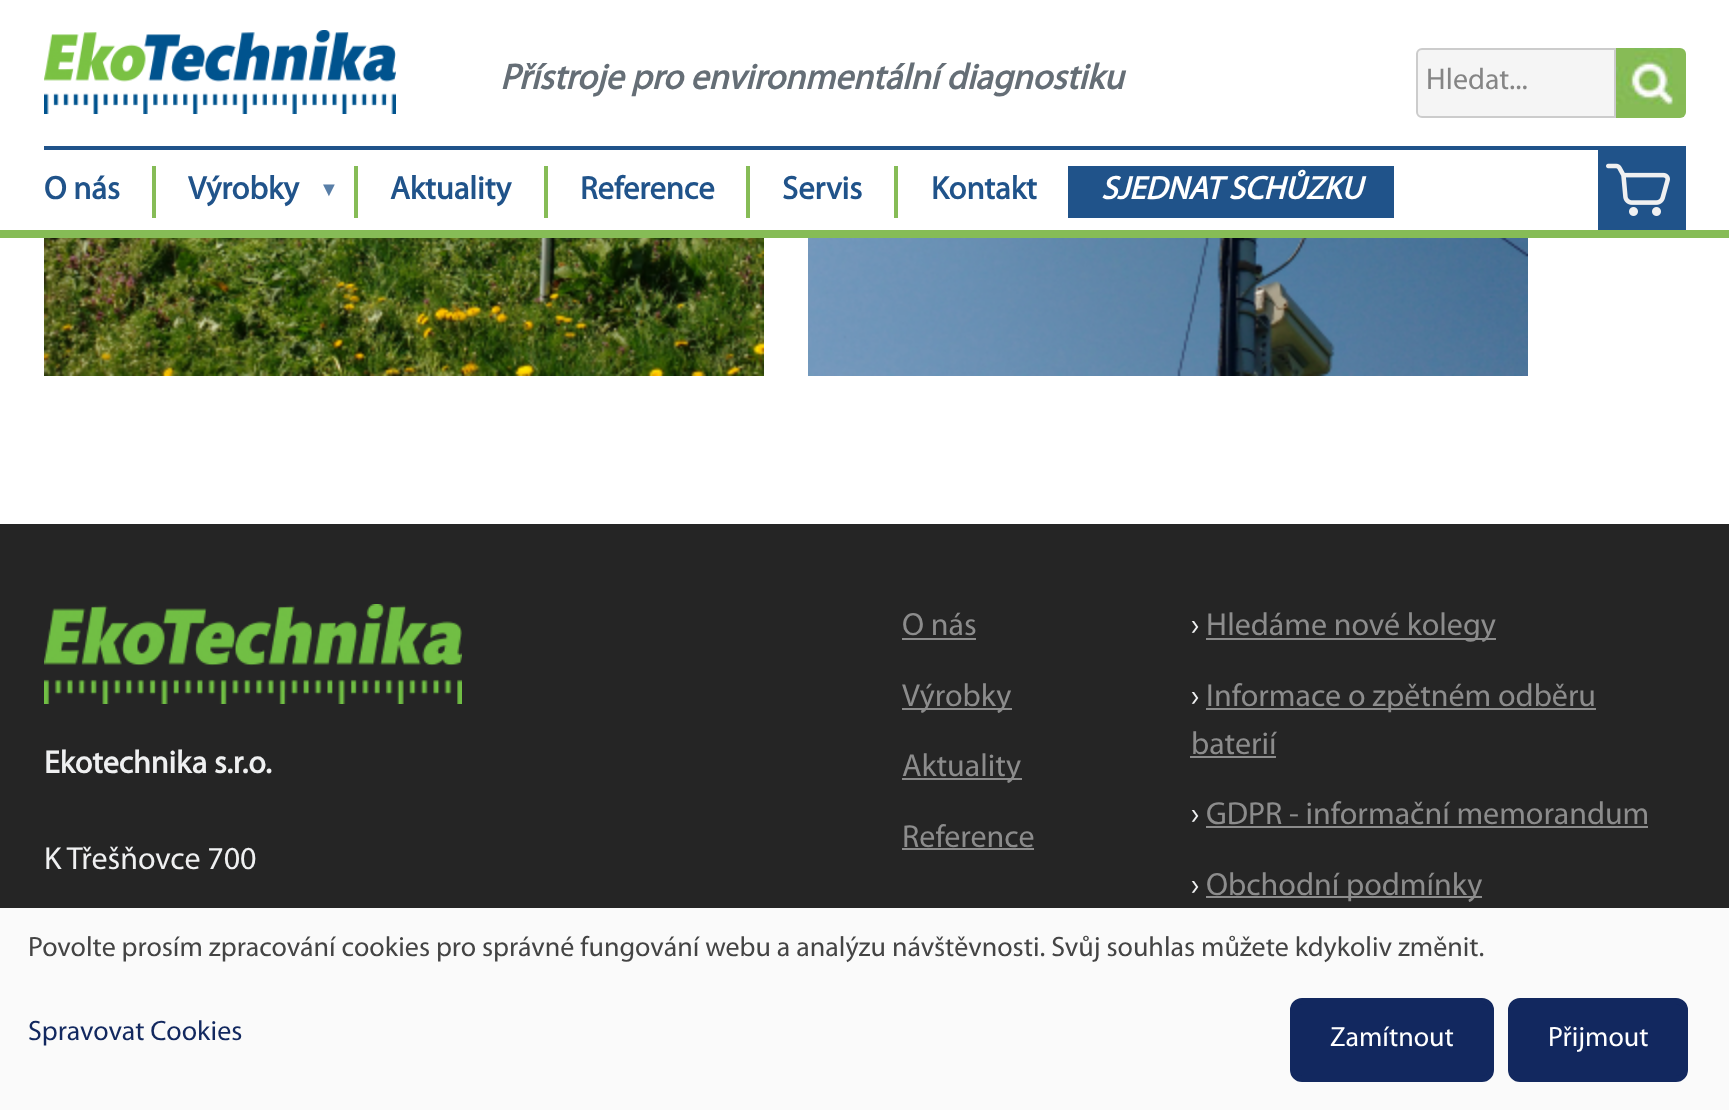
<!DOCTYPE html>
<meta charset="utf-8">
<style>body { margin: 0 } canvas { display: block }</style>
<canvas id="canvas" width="1729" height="1110"></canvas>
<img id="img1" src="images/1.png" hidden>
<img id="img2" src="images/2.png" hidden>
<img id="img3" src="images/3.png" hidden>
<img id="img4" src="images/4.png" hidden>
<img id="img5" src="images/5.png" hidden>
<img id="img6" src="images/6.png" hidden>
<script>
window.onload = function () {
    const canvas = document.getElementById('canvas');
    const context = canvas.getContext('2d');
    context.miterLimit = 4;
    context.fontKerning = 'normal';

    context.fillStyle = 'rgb(255, 255, 255)';
    context.fillRect(0, 0, 1729, 1110);
    context.fillStyle = 'rgb(134, 188, 86)';
    context.fillRect(0, 230, 1729, 8);
    context.fillStyle = 'rgb(32, 83, 138)';
    context.fillRect(44, 146, 1642, 4);
    context.drawImage(document.getElementById('img1'), 44, 30, 352, 84);
    context.fillStyle = 'rgb(245, 245, 245)';
    context.beginPath();
    context.roundRect(1417, 49, 198, 68, [5, 0, 0, 5]);
    context.fill();
    context.strokeStyle = 'rgb(204, 204, 204)';
    context.lineWidth = 2;
    context.stroke();
    context.drawImage(document.getElementById('img2'), 1616, 48, 70, 70);
    context.fillStyle = 'rgb(134, 188, 86)';
    context.fillRect(152, 166, 4, 52);
    context.fillRect(354, 166, 4, 52);
    context.fillRect(544, 166, 4, 52);
    context.fillRect(746, 166, 4, 52);
    context.fillRect(894, 166, 4, 52);
    context.fillStyle = 'rgb(32, 83, 138)';
    context.fillRect(1068, 166, 326, 52);
    context.fillRect(1598, 150, 88, 80);
    context.drawImage(document.getElementById('img3'), 1606, 163, 64, 53);
    context.drawImage(document.getElementById('img4'), 44, 238, 720, 138);
    context.drawImage(document.getElementById('img5'), 808, 238, 720, 138);
    context.fillStyle = 'rgb(37, 37, 37)';
    context.fillRect(0, 524, 1729, 384);
    context.drawImage(document.getElementById('img6'), 44, 604, 418, 100);
    context.fillStyle = 'rgb(140, 140, 140)';
    context.fillRect(902, 638, 74, 2);
    context.fillRect(902, 708, 110, 2);
    context.fillRect(902, 778, 120, 2);
    context.fillRect(902, 848, 132, 2);
    context.fillRect(1206, 638, 290, 2);
    context.fillRect(1206, 708, 390, 2);
    context.fillRect(1190, 756, 86, 2);
    context.fillRect(1206, 826, 442, 2);
    context.fillRect(1206, 896, 276, 2);
    context.fillStyle = 'rgb(250, 250, 250)';
    context.fillRect(0, 908, 1729, 202);
    context.fillStyle = 'rgb(18, 40, 95)';
    context.beginPath();
    context.roundRect(1293, 1001, 198, 78, 9);
    context.fill();
    context.strokeStyle = 'rgb(18, 40, 95)';
    context.lineWidth = 6;
    context.stroke();
    context.beginPath();
    context.roundRect(1511, 1001, 174, 78, 9);
    context.fill();
    context.stroke();
    context.font = 'italic bold 36px Myriad';
    context.fillStyle = 'rgb(101, 110, 118)';
    context.fillText('Přístroje pro environmentální diagnostiku', 500, 89);
    context.font = '30px Myriad';
    context.fillStyle = 'rgb(133, 133, 133)';
    context.fillText('Hledat...', 1426, 89);
    context.font = 'bold 32.5px Myriad';
    context.fillStyle = 'rgb(32, 83, 138)';
    context.fillText('O nás', 44, 199);
    context.fillText('Výrobky', 188, 199);
    context.font = 'bold 20px Liberation Sans';
    context.fillStyle = 'rgb(88, 126, 167)';
    context.fillText('▼', 319, 196);
    context.font = 'bold 32.5px Myriad';
    context.fillStyle = 'rgb(32, 83, 138)';
    context.fillText('Aktuality', 390, 199);
    context.fillText('Reference', 580, 199);
    context.fillText('Servis', 782, 199);
    context.fillText('Kontakt', 931, 199);
    context.font = 'italic bold 32.5px Myriad';
    context.fillStyle = 'rgb(255, 255, 255)';
    context.fillText('SJEDNAT SCHŮZKU', 1101, 199);
    context.font = 'bold 32px Myriad';
    context.fillStyle = 'rgb(239, 240, 241)';
    context.fillText('Ekotechnika s.r.o.', 44, 773);
    context.font = '32px Myriad';
    context.fillText('K Třešňovce 700', 44, 869);
    context.fillStyle = 'rgb(140, 140, 140)';
    context.fillText('O nás', 902, 635);
    context.fillText('Výrobky', 902, 706);
    context.fillText('Aktuality', 902, 776);
    context.fillText('Reference', 902, 847);
    context.fillStyle = 'rgb(239, 240, 241)';
    context.fillText('›', 1191, 635);
    context.fillStyle = 'rgb(140, 140, 140)';
    context.fillText('Hledáme nové kolegy', 1206, 635);
    context.fillStyle = 'rgb(239, 240, 241)';
    context.fillText('›', 1191, 706);
    context.fillStyle = 'rgb(140, 140, 140)';
    context.fillText('Informace o zpětném odběru', 1206, 706);
    context.fillText('baterií', 1191, 754);
    context.fillStyle = 'rgb(239, 240, 241)';
    context.fillText('›', 1191, 824);
    context.fillStyle = 'rgb(140, 140, 140)';
    context.fillText('GDPR - informační memorandum', 1206, 824);
    context.fillStyle = 'rgb(239, 240, 241)';
    context.fillText('›', 1191, 895);
    context.fillStyle = 'rgb(140, 140, 140)';
    context.fillText('Obchodní podmínky', 1206, 895);
    context.font = '28px Myriad';
    context.fillStyle = 'rgb(68, 68, 68)';
    context.fillText('Povolte prosím zpracování cookies pro správné fungování webu a analýzu návštěvnosti. Svůj souhlas můžete kdykoliv změnit.', 28, 956);
    context.fillStyle = 'rgb(18, 40, 95)';
    context.fillText('Spravovat Cookies', 28, 1040);
    context.fillStyle = 'rgb(255, 255, 255)';
    context.fillText('Zamítnout', 1330, 1046);
    context.fillText('Přijmout', 1548, 1046);
};
</script>
